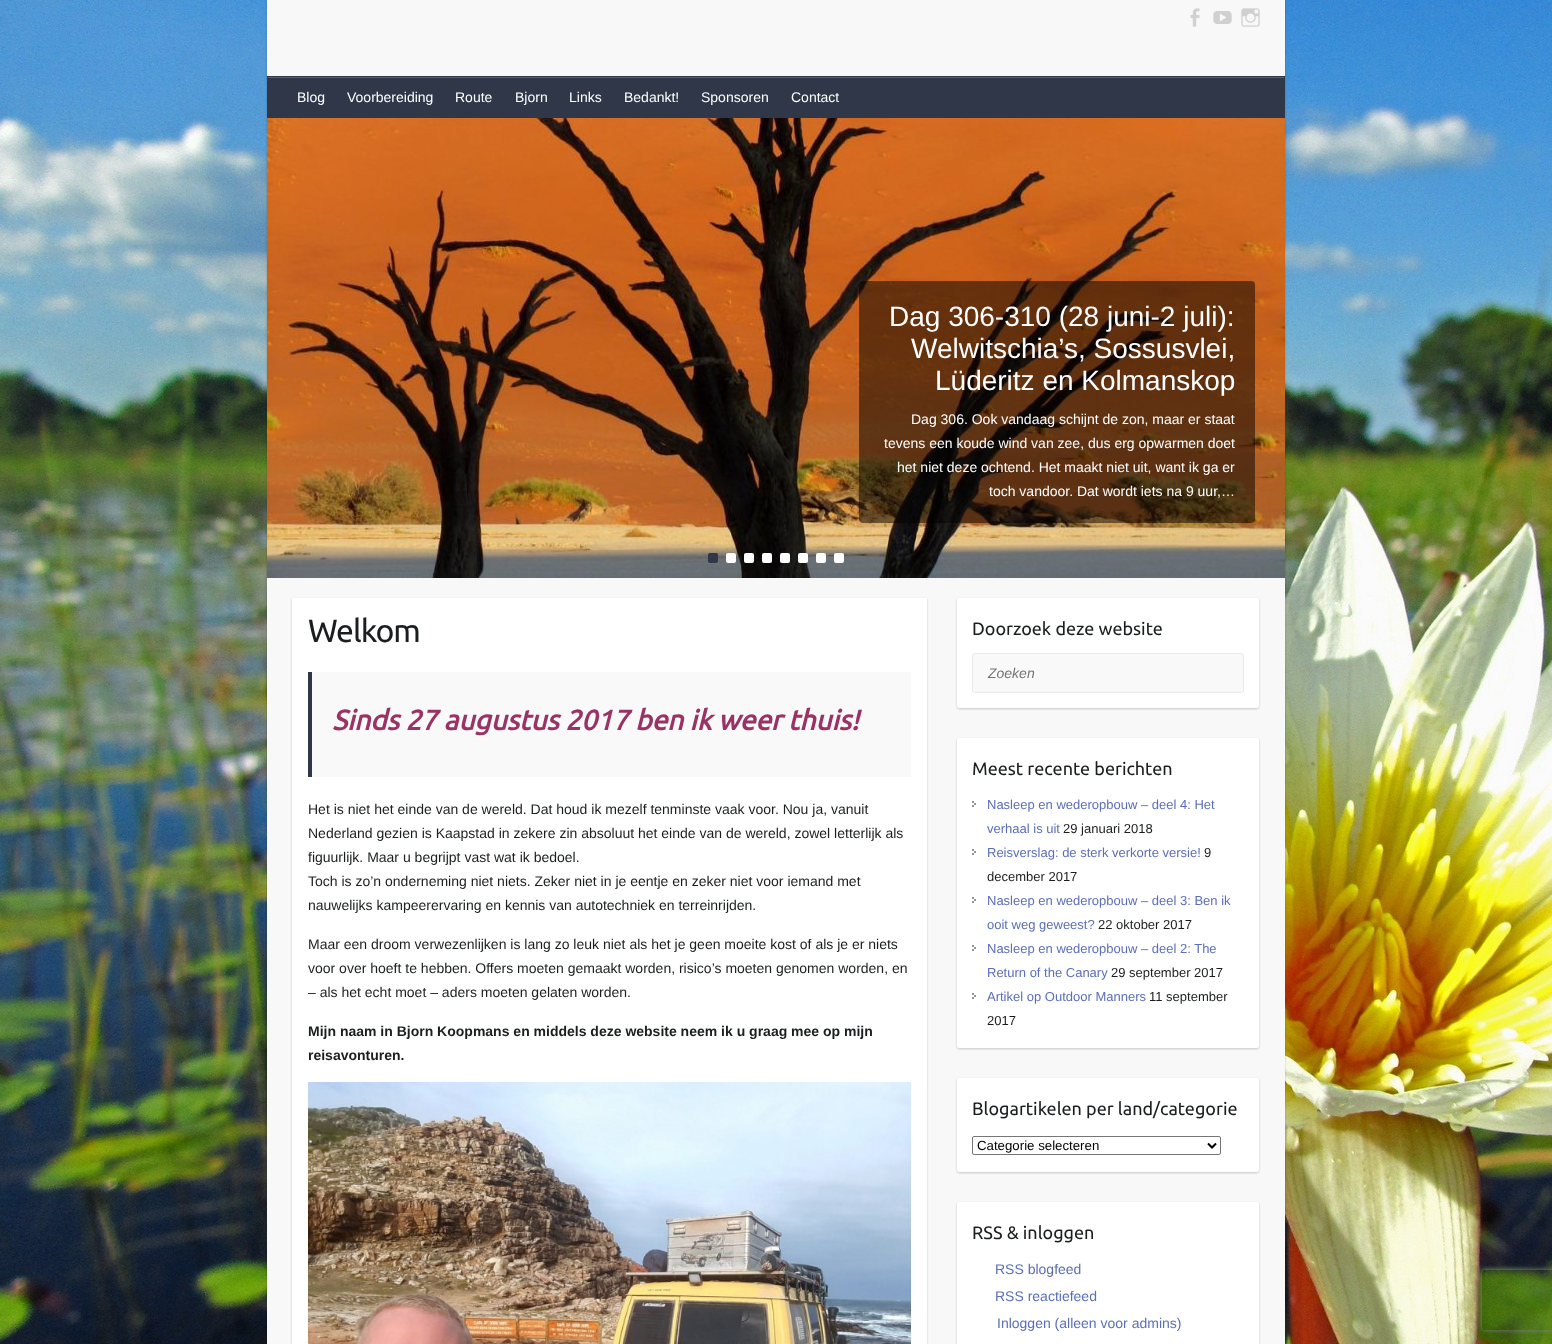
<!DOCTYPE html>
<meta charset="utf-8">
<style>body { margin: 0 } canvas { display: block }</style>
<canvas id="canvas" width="1552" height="1344"></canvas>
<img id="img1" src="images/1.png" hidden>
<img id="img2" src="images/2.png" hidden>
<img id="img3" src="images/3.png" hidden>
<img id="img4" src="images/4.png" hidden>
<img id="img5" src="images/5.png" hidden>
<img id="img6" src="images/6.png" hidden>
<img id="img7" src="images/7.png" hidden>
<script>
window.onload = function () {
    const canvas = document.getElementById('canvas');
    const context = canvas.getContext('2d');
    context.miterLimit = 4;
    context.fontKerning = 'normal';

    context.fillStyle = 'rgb(255, 255, 255)';
    context.fillRect(0, 0, 1552, 1344);
    context.drawImage(document.getElementById('img1'), 0, 0, 1552, 1344);
    context.fillStyle = 'rgba(0, 0, 0, 0.2)';
    context.filter = 'blur(1px)';
    context.beginPath();
    context.roundRect(267, -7, 1018, 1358, 4);
    context.fill();
    context.filter = 'none';
    context.fillStyle = 'rgb(248, 248, 248)';
    context.fillRect(267, 0, 1018, 1344);
    context.drawImage(document.getElementById('img2'), 1190, 8, 10, 19);
    context.drawImage(document.getElementById('img3'), 1213, 11, 19, 13);
    context.drawImage(document.getElementById('img4'), 1241, 8, 19, 19);
    context.fillStyle = 'rgb(48, 55, 73)';
    context.fillRect(267, 76, 1018, 42);
    context.fillStyle = 'rgb(89, 95, 109)';
    context.fillRect(268, 77, 1016, 1);
    context.drawImage(document.getElementById('img5'), 267, 118, 1018, 460);
    context.fillStyle = 'rgba(0, 0, 0, 0.5)';
    context.beginPath();
    context.roundRect(859, 281, 396, 242, 4);
    context.fill();
    context.fillStyle = 'rgb(48, 55, 73)';
    context.beginPath();
    context.roundRect(708, 553, 10, 10, 2);
    context.fill();
    context.fillStyle = 'rgb(255, 255, 255)';
    context.beginPath();
    context.roundRect(726, 553, 10, 10, 2);
    context.fill();
    context.beginPath();
    context.roundRect(744, 553, 10, 10, 2);
    context.fill();
    context.beginPath();
    context.roundRect(762, 553, 10, 10, 2);
    context.fill();
    context.beginPath();
    context.roundRect(780, 553, 10, 10, 2);
    context.fill();
    context.beginPath();
    context.roundRect(798, 553, 10, 10, 2);
    context.fill();
    context.beginPath();
    context.roundRect(816, 553, 10, 10, 2);
    context.fill();
    context.beginPath();
    context.roundRect(834, 553, 10, 10, 2);
    context.fill();
    context.fillStyle = 'rgba(0, 0, 0, 0.2)';
    context.filter = 'blur(1px)';
    context.beginPath();
    context.rect(292, 599, 635, 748);
    context.fill();
    context.filter = 'none';
    context.fillStyle = 'rgb(255, 255, 255)';
    context.fillRect(292, 598, 635, 746);
    context.fillStyle = 'rgb(249, 249, 249)';
    context.fillRect(312, 672, 599, 105);
    context.fillStyle = 'rgb(48, 55, 73)';
    context.fillRect(308, 672, 4, 105);
    context.drawImage(document.getElementById('img6'), 308, 1082, 603, 262);
    context.fillStyle = 'rgba(0, 0, 0, 0.2)';
    context.filter = 'blur(1px)';
    context.beginPath();
    context.roundRect(957, 599, 302, 110, 2);
    context.fill();
    context.filter = 'none';
    context.fillStyle = 'rgb(255, 255, 255)';
    context.beginPath();
    context.roundRect(957, 598, 302, 110, 2);
    context.fill();
    context.fillStyle = 'rgb(249, 249, 249)';
    context.beginPath();
    context.roundRect(972.5, 653.5, 271, 39, 2.5);
    context.fill();
    context.strokeStyle = 'rgb(234, 234, 234)';
    context.stroke();
    context.fillStyle = 'rgba(0, 0, 0, 0.2)';
    context.filter = 'blur(1px)';
    context.beginPath();
    context.roundRect(957, 739, 302, 310, 2);
    context.fill();
    context.filter = 'none';
    context.fillStyle = 'rgb(255, 255, 255)';
    context.beginPath();
    context.roundRect(957, 738, 302, 310, 2);
    context.fill();
    context.drawImage(document.getElementById('img7'), 972, 801, 4, 6);
    context.drawImage(document.getElementById('img7'), 972, 849, 4, 6);
    context.drawImage(document.getElementById('img7'), 972, 897, 4, 6);
    context.drawImage(document.getElementById('img7'), 972, 945, 4, 6);
    context.drawImage(document.getElementById('img7'), 972, 993, 4, 6);
    context.fillStyle = 'rgba(0, 0, 0, 0.2)';
    context.filter = 'blur(1px)';
    context.beginPath();
    context.roundRect(957, 1079, 302, 94, 2);
    context.fill();
    context.filter = 'none';
    context.fillStyle = 'rgb(255, 255, 255)';
    context.beginPath();
    context.roundRect(957, 1078, 302, 94, 2);
    context.fill();
    context.beginPath();
    context.roundRect(972.5, 1136.5, 248, 18, 1.5);
    context.strokeStyle = 'rgb(118, 118, 118)';
    context.stroke();
    context.beginPath();
    context.moveTo(1208, 1143.5);
    context.lineTo(1212, 1147.5);
    context.lineTo(1216, 1143.5);
    context.strokeStyle = 'rgb(0, 0, 0)';
    context.lineWidth = 2;
    context.stroke();
    context.fillStyle = 'rgba(0, 0, 0, 0.2)';
    context.filter = 'blur(1px)';
    context.beginPath();
    context.roundRect(957, 1203, 302, 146, 2);
    context.fill();
    context.filter = 'none';
    context.fillStyle = 'rgb(255, 255, 255)';
    context.beginPath();
    context.roundRect(957, 1202, 302, 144, 2);
    context.fill();
    context.save();
    context.beginPath();
    context.moveTo(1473, 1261);
    context.lineTo(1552, 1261);
    context.lineTo(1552, 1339);
    context.lineTo(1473, 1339);
    context.closePath();
    context.moveTo(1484, 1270);
    context.lineTo(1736, 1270);
    context.bezierCurveTo(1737, 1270, 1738, 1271, 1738, 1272);
    context.lineTo(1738, 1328);
    context.bezierCurveTo(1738, 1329, 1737, 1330, 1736, 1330);
    context.lineTo(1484, 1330);
    context.bezierCurveTo(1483, 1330, 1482, 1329, 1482, 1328);
    context.lineTo(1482, 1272);
    context.bezierCurveTo(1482, 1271, 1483, 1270, 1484, 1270);
    context.closePath();
    context.clip('evenodd');
    context.fillStyle = 'rgb(128, 128, 128)';
    context.filter = 'blur(2.5px)';
    context.beginPath();
    context.roundRect(1482, 1270, 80, 60, 2);
    context.fill();
    context.filter = 'none';
    context.restore();
    context.font = '14px Liberation Sans';
    context.fillText('Blog', 297, 102);
    context.fillText('Voorbereiding', 347, 102);
    context.fillText('Route', 455, 102);
    context.fillText('Bjorn', 515, 102);
    context.fillText('Links', 569, 102);
    context.fillText('Bedankt!', 624, 102);
    context.fillText('Sponsoren', 701, 102);
    context.fillText('Contact', 791, 102);
    context.font = '28px Liberation Sans';
    context.fillText('Dag 306-310 (28 juni-2 juli):', 889, 326);
    context.fillText('Welwitschia’s, Sossusvlei,', 911, 358);
    context.fillText('Lüderitz en Kolmanskop', 935, 390);
    context.font = '14px Liberation Sans';
    context.fillText('Dag 306. Ook vandaag schijnt de zon, maar er staat', 911, 424);
    context.fillText('tevens een koude wind van zee, dus erg opwarmen doet', 884, 448);
    context.fillText('het niet deze ochtend. Het maakt niet uit, want ik ga er', 897, 472);
    context.fillText('toch vandoor. Dat wordt iets na 9 uur,…', 989, 496);
    context.letterSpacing = '-1px';
    context.font = '32px Ubuntu';
    context.fillStyle = 'rgb(27, 30, 31)';
    context.fillText('Welkom', 308, 642);
    context.letterSpacing = '0px';
    context.font = 'italic bold 28px Ubuntu';
    context.fillStyle = 'rgb(153, 51, 102)';
    context.fillText('Sinds 27 augustus 2017 ben ik weer thuis!', 332, 730);
    context.font = '14px Liberation Sans';
    context.fillStyle = 'rgb(27, 30, 31)';
    context.fillText('Het is niet het einde van de wereld. Dat houd ik mezelf tenminste vaak voor. Nou ja, vanuit', 308, 814);
    context.fillText('Nederland gezien is Kaapstad in zekere zin absoluut het einde van de wereld, zowel letterlijk als', 308, 838);
    context.fillText('figuurlijk. Maar u begrijpt vast wat ik bedoel.', 308, 862);
    context.fillText('Toch is zo’n onderneming niet niets. Zeker niet in je eentje en zeker niet voor iemand met', 308, 886);
    context.fillText('nauwelijks kampeerervaring en kennis van autotechniek en terreinrijden.', 308, 910);
    context.fillText('Maar een droom verwezenlijken is lang zo leuk niet als het je geen moeite kost of als je er niets', 308, 949);
    context.fillText('voor over hoeft te hebben. Offers moeten gemaakt worden, risico’s moeten genomen worden, en', 308, 973);
    context.fillText('– als het echt moet – aders moeten gelaten worden.', 308, 997);
    context.font = 'bold 14px Liberation Sans';
    context.fillText('Mijn naam in Bjorn Koopmans en middels deze website neem ik u graag mee op mijn', 308, 1036);
    context.fillText('reisavonturen.', 308, 1060);
    context.font = '18px Ubuntu';
    context.fillText('Doorzoek deze website', 972, 635);
    context.font = 'italic 14px Liberation Sans';
    context.fillStyle = 'rgb(117, 117, 117)';
    context.fillText('Zoeken', 988, 678);
    context.font = '18px Ubuntu';
    context.fillStyle = 'rgb(27, 30, 31)';
    context.fillText('Meest recente berichten', 972, 775);
    context.font = '13px Liberation Sans';
    context.fillStyle = 'rgb(91, 111, 183)';
    context.fillText('Nasleep en wederopbouw – deel 4: Het', 987, 809);
    context.fillText('verhaal is uit', 987, 833);
    context.fillStyle = 'rgb(27, 30, 31)';
    context.fillText('29 januari 2018', 1063, 833);
    context.fillStyle = 'rgb(91, 111, 183)';
    context.fillText('Reisverslag: de sterk verkorte versie!', 987, 857);
    context.fillStyle = 'rgb(27, 30, 31)';
    context.fillText('9', 1204, 857);
    context.fillText('december 2017', 987, 881);
    context.fillStyle = 'rgb(91, 111, 183)';
    context.fillText('Nasleep en wederopbouw – deel 3: Ben ik', 987, 905);
    context.fillText('ooit weg geweest?', 987, 929);
    context.fillStyle = 'rgb(27, 30, 31)';
    context.fillText('22 oktober 2017', 1098, 929);
    context.fillStyle = 'rgb(91, 111, 183)';
    context.fillText('Nasleep en wederopbouw – deel 2: The', 987, 953);
    context.fillText('Return of the Canary', 987, 977);
    context.fillStyle = 'rgb(27, 30, 31)';
    context.fillText('29 september 2017', 1111, 977);
    context.fillStyle = 'rgb(91, 111, 183)';
    context.fillText('Artikel op Outdoor Manners', 987, 1001);
    context.fillStyle = 'rgb(27, 30, 31)';
    context.fillText('11 september', 1149, 1001);
    context.fillText('2017', 987, 1025);
    context.font = '18px Ubuntu';
    context.fillText('Blogartikelen per land/categorie', 972, 1115);
    context.font = '13.25px Liberation Sans';
    context.fillStyle = 'rgb(0, 0, 0)';
    context.fillText('Categorie selecteren', 977, 1150);
    context.font = '18px Ubuntu';
    context.fillStyle = 'rgb(27, 30, 31)';
    context.fillText('RSS & inloggen', 972, 1239);
    context.font = '14px Liberation Sans';
    context.fillStyle = 'rgb(91, 111, 183)';
    context.fillText('RSS blogfeed', 995, 1274);
    context.fillText('RSS reactiefeed', 995, 1301);
    context.fillText('Inloggen (alleen voor admins)', 997, 1328);
};
</script>
